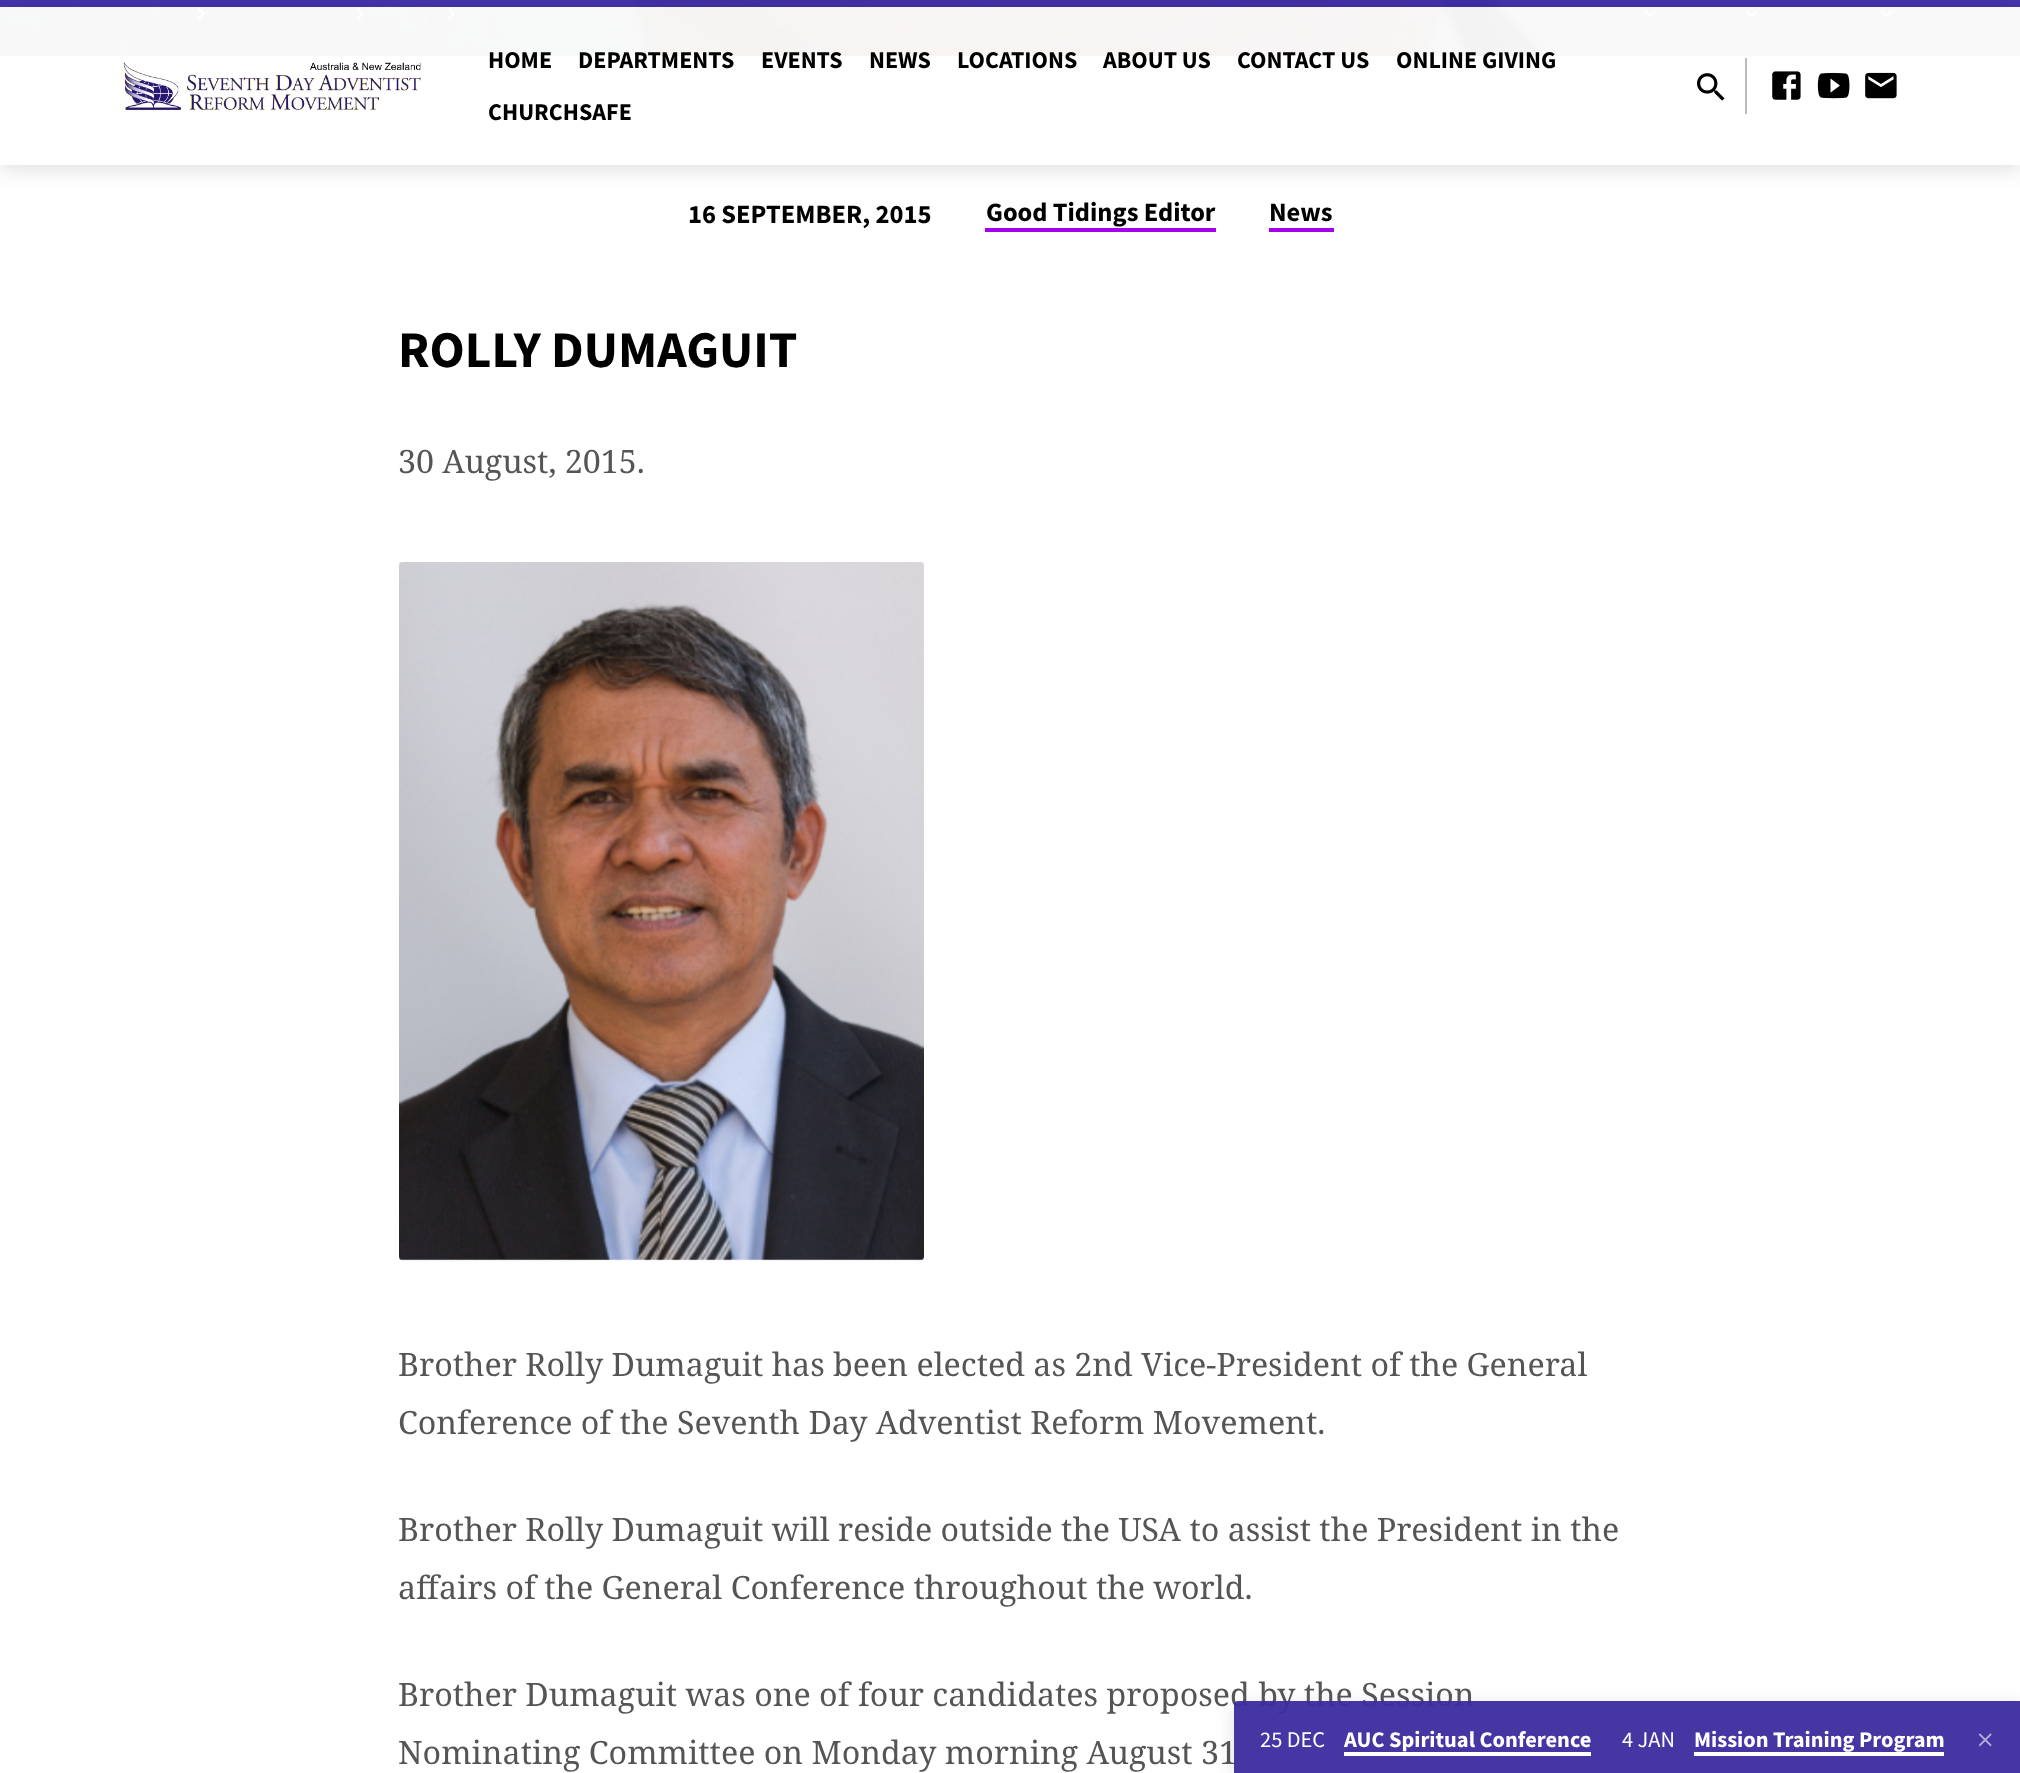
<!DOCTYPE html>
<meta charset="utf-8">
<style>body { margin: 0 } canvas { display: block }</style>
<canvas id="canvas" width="2020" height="1773"></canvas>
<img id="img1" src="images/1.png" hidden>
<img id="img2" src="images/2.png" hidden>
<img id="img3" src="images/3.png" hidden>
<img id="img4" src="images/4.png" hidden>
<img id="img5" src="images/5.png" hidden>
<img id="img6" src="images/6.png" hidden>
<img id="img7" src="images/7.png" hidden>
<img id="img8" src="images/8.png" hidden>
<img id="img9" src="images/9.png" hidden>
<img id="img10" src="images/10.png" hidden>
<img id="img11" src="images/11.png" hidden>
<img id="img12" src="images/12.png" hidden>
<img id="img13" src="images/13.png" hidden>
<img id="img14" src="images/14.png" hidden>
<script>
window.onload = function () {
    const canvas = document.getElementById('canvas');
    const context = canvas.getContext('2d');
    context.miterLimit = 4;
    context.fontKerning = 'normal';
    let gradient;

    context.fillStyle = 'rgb(255, 255, 255)';
    context.fillRect(0, 0, 2020, 1773);
    context.drawImage(document.getElementById('img1'), 0, 0, 2020, 56);
    gradient = context.createLinearGradient(1011, -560, 1011, 56);
    gradient.addColorStop(0, 'rgba(0, 0, 0, 0)');
    gradient.addColorStop(0.36, 'rgba(0, 0, 0, 0)');
    gradient.addColorStop(0.76, 'rgba(0, 0, 0, 0.28)');
    gradient.addColorStop(1, 'rgba(0, 0, 0, 0.28)');
    context.fillStyle = gradient;
    context.fillRect(0, 0, 2020, 56);
    context.drawImage(document.getElementById('img2'), 197, 7, 8, 13);
    context.drawImage(document.getElementById('img3'), 357, 7, 8, 13);
    context.drawImage(document.getElementById('img4'), 448, 7, 8, 13);
    context.drawImage(document.getElementById('img5'), 1644, 10, 12, 8);
    context.drawImage(document.getElementById('img6'), 1745, 10, 13, 8);
    context.drawImage(document.getElementById('img7'), 1880, 10, 13, 8);
    context.fillStyle = 'rgba(65, 48, 173, 0.95)';
    context.fillRect(0, 0, 2020, 7);
    context.fillStyle = 'rgba(255, 255, 255, 0.95)';
    context.fillRect(0, 7, 2020, 49);
    context.save();
    context.beginPath();
    context.moveTo(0, 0);
    context.lineTo(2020, 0);
    context.lineTo(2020, 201);
    context.lineTo(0, 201);
    context.closePath();
    context.moveTo(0, 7);
    context.lineTo(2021, 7);
    context.lineTo(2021, 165);
    context.lineTo(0, 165);
    context.closePath();
    context.clip('evenodd');
    context.fillStyle = 'rgba(0, 0, 0, 0.14)';
    context.filter = 'blur(10.5px)';
    context.beginPath();
    context.rect(0, 11, 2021, 157);
    context.fill();
    context.filter = 'none';
    context.restore();
    context.drawImage(document.getElementById('img8'), 121, 60, 300, 52);
    context.drawImage(document.getElementById('img9'), 1697, 73, 28, 28);
    context.fillStyle = 'rgb(187, 187, 187)';
    context.fillRect(1745, 58, 2, 56);
    context.drawImage(document.getElementById('img10'), 1772, 71, 29, 29);
    context.drawImage(document.getElementById('img11'), 1817, 72, 33, 27);
    context.drawImage(document.getElementById('img12'), 1865, 72, 32, 27);
    context.fillStyle = 'rgb(164, 2, 234)';
    context.fillRect(985, 228, 231, 4);
    context.fillRect(1269, 228, 65, 4);
    context.drawImage(document.getElementById('img13'), 399, 562, 525, 699);
    context.save();
    context.beginPath();
    context.moveTo(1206, 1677);
    context.lineTo(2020, 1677);
    context.lineTo(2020, 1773);
    context.lineTo(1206, 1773);
    context.closePath();
    context.moveTo(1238, 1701);
    context.lineTo(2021, 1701);
    context.lineTo(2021, 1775);
    context.lineTo(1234, 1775);
    context.lineTo(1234, 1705);
    context.bezierCurveTo(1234, 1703, 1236, 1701, 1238, 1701);
    context.closePath();
    context.clip('evenodd');
    context.fillStyle = 'rgba(0, 0, 0, 0.12)';
    context.filter = 'blur(9px)';
    context.beginPath();
    context.roundRect(1234, 1705, 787, 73, 4);
    context.fill();
    context.filter = 'none';
    context.restore();
    context.font = 'bold 24px Source Sans Pro';
    context.fillStyle = 'rgb(0, 0, 0)';
    context.fillText('HOME', 488, 68);
    context.fillText('DEPARTMENTS', 578, 68);
    context.fillText('EVENTS', 761, 68);
    context.fillText('NEWS', 869, 68);
    context.fillText('LOCATIONS', 957, 68);
    context.fillText('ABOUT US', 1103, 68);
    context.fillText('CONTACT US', 1237, 68);
    context.fillText('ONLINE GIVING', 1396, 68);
    context.fillText('CHURCHSAFE', 488, 120);
    context.font = 'bold 26.5px Source Sans Pro';
    context.fillText('16 SEPTEMBER, 2015', 688, 223);
    context.fillText('Good Tidings Editor', 986, 221);
    context.fillText('News', 1269, 221);
    context.font = 'bold 51.5px Source Sans Pro';
    context.fillText('ROLLY DUMAGUIT', 398, 367);
    context.font = '32.2px Noto Serif';
    context.fillStyle = 'rgb(85, 85, 85)';
    context.fillText('30 August, 2015.', 398, 473);
    context.fillText('Brother Rolly Dumaguit has been elected as 2nd Vice-President of the General', 398, 1376);
    context.fillText('Conference of the Seventh Day Adventist Reform Movement.', 398, 1434);
    context.fillText('Brother Rolly Dumaguit will reside outside the USA to assist the President in the', 398, 1541);
    context.fillText('affairs of the General Conference throughout the world.', 398, 1599);
    context.fillText('Brother Dumaguit was one of four candidates proposed by the Session', 398, 1706);
    context.fillText('Nominating Committee on Monday morning August 31', 398, 1764);
    context.fillStyle = 'rgba(65, 48, 173, 0.95)';
    context.beginPath();
    context.moveTo(1238, 1701);
    context.lineTo(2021, 1701);
    context.lineTo(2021, 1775);
    context.lineTo(1234, 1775);
    context.lineTo(1234, 1705);
    context.bezierCurveTo(1234, 1703, 1236, 1701, 1238, 1701);
    context.closePath();
    context.fill();
    context.fillStyle = 'rgba(0, 0, 0, 0.07)';
    context.fillRect(1234, 1701, 786, 72);
    context.font = '22.4px Source Sans Pro';
    context.fillStyle = 'rgb(255, 255, 255)';
    context.fillText('25 DEC', 1260, 1747);
    context.font = 'bold 22.4px Source Sans Pro';
    context.fillText('AUC Spiritual Conference', 1344, 1747);
    context.fillRect(1344, 1752, 247, 4);
    context.font = '22.4px Source Sans Pro';
    context.fillText('4 JAN', 1622, 1747);
    context.font = 'bold 22.4px Source Sans Pro';
    context.fillText('Mission Training Program', 1694, 1747);
    context.fillRect(1694, 1752, 250, 4);
    context.drawImage(document.getElementById('img14'), 1978, 1733, 14, 14);
};
</script>
